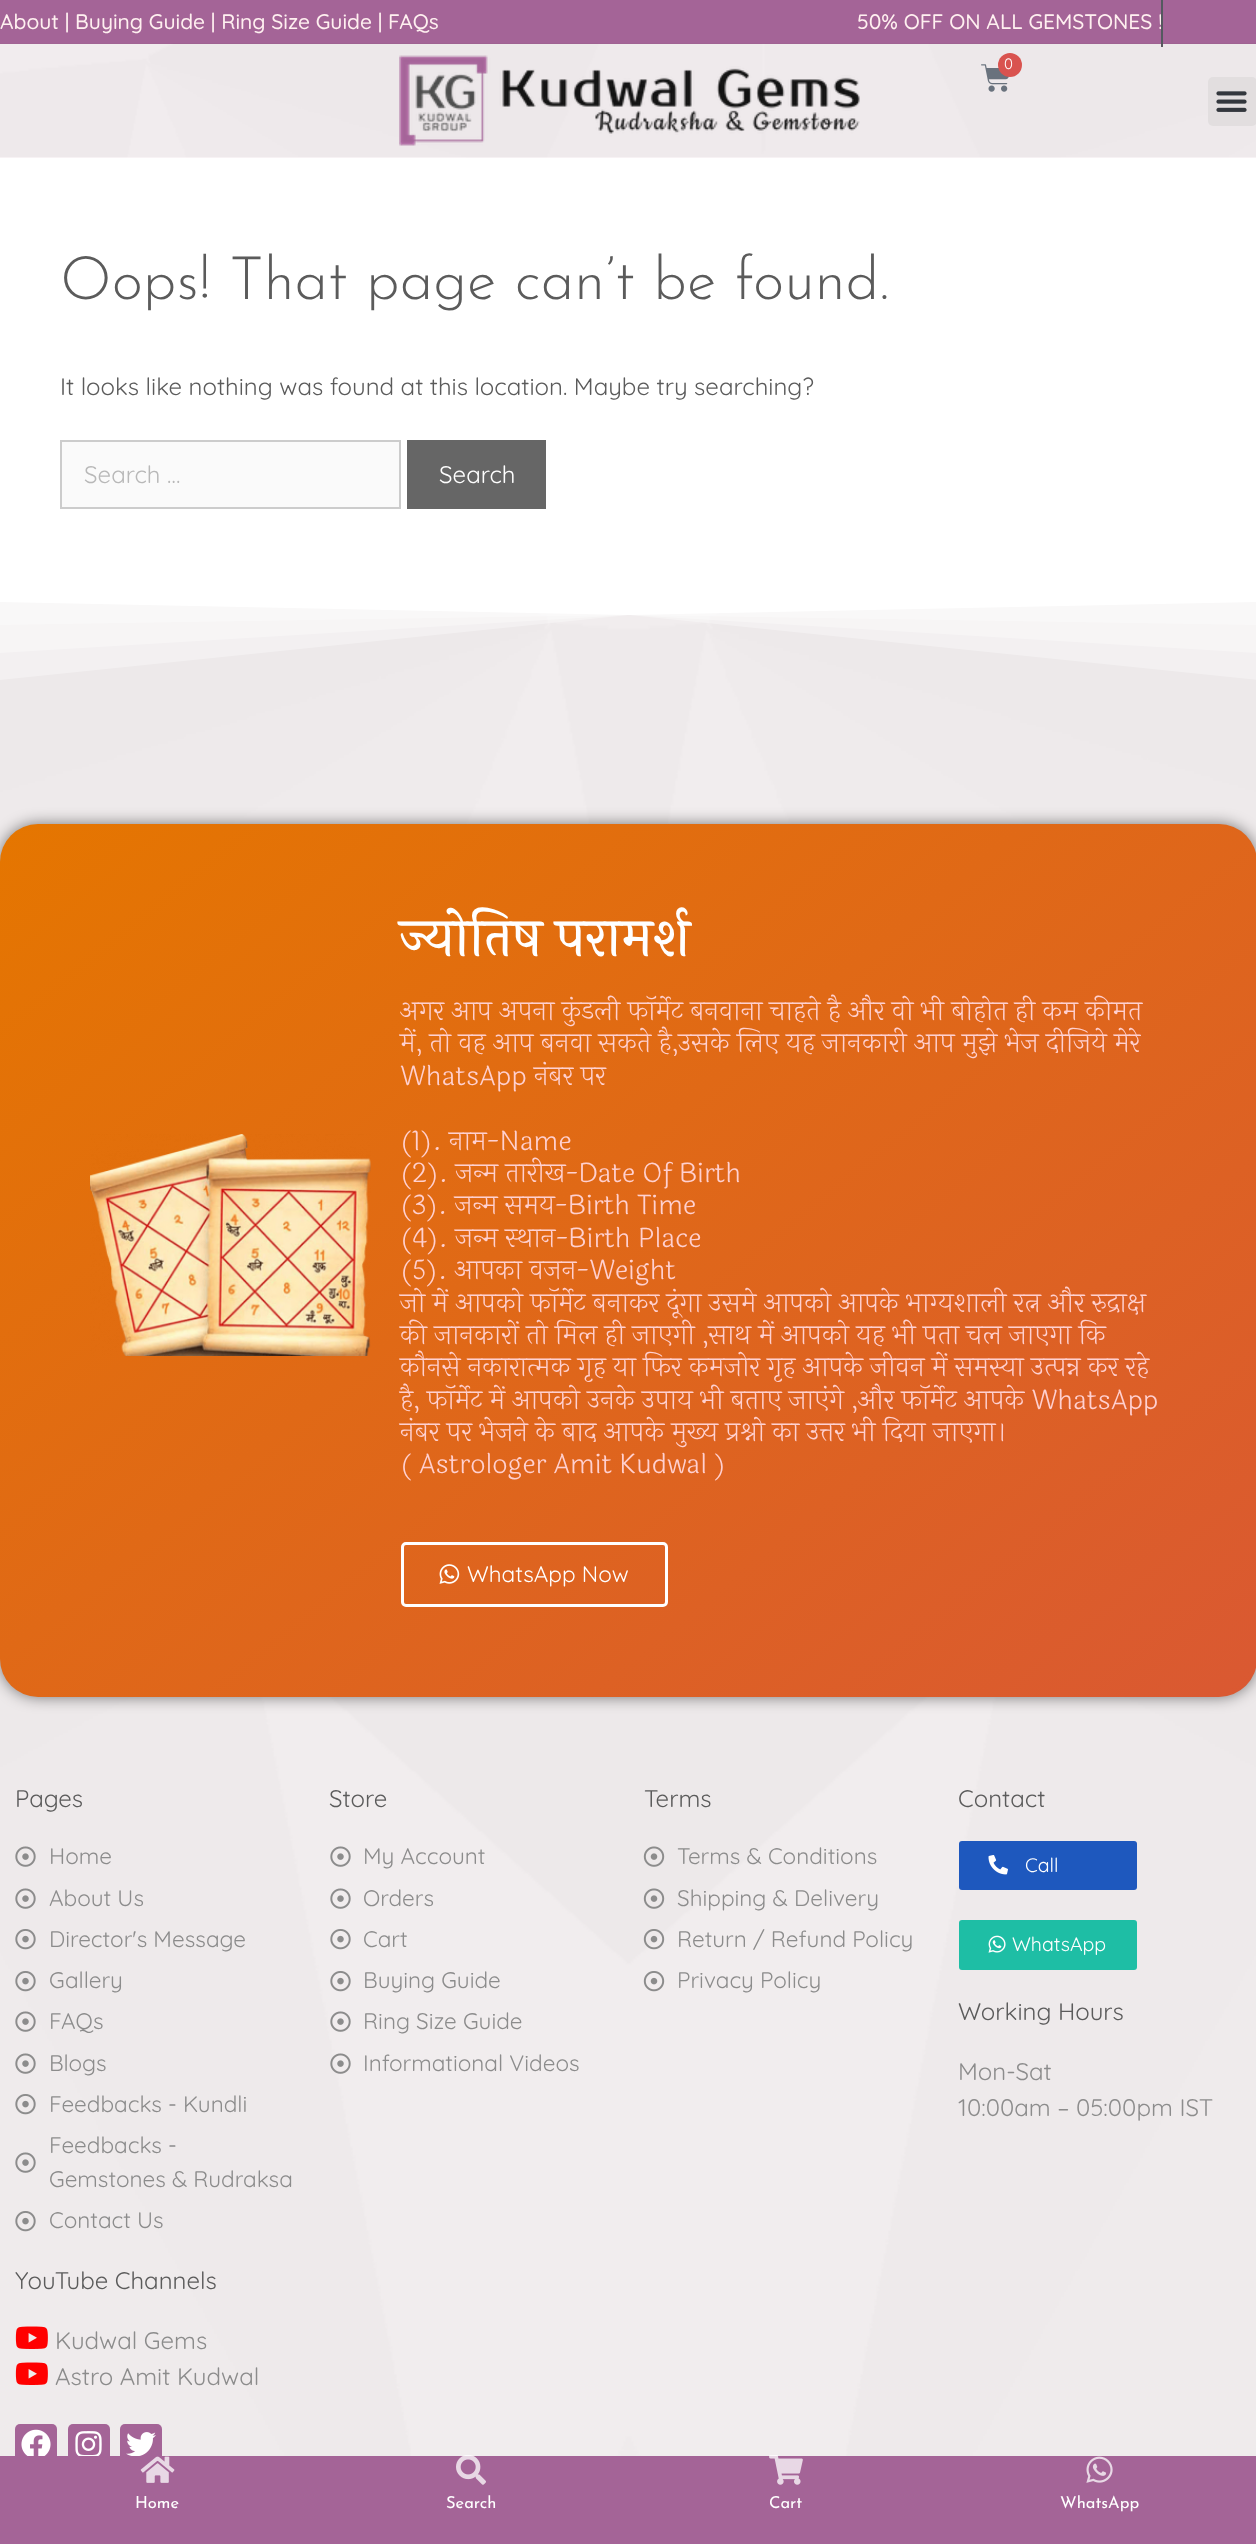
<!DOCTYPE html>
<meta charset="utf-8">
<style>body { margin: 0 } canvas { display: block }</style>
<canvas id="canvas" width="1256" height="2544"></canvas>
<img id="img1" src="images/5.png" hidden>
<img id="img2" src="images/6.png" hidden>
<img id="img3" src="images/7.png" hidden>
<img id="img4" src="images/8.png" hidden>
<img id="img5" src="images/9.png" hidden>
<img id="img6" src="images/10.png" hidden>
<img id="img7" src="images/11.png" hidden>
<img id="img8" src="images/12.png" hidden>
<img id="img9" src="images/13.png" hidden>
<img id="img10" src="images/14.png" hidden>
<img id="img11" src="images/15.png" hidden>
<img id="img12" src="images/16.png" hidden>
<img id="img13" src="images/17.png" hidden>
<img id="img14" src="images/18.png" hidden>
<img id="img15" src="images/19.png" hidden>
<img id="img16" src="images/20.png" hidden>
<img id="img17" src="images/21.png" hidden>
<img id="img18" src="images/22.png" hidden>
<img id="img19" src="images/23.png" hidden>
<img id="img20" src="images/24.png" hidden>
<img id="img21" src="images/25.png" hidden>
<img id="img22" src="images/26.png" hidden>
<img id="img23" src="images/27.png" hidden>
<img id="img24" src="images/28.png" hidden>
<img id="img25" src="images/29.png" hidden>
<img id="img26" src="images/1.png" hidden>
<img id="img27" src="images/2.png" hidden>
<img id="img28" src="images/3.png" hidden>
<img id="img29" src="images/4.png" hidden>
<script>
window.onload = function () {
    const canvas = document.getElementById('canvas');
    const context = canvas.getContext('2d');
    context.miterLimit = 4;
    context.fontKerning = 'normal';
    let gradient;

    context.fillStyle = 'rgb(255, 255, 255)';
    context.fillRect(0, 0, 1256, 2544);
    context.fillStyle = 'rgb(255, 250, 252)';
    context.fillRect(0, 44, 1256, 114);
    context.fillStyle = 'rgb(164, 100, 151)';
    context.fillRect(0, 0, 1256, 44);
    context.fillStyle = 'rgb(250, 250, 250)';
    context.beginPath();
    context.rect(61, 441, 339, 67);
    context.fill();
    context.strokeStyle = 'rgb(204, 204, 204)';
    context.lineWidth = 2;
    context.stroke();
    context.fillStyle = 'rgb(102, 102, 102)';
    context.fillRect(407, 440, 139, 69);
    context.fillStyle = 'rgb(255, 251, 252)';
    context.fillRect(0, 602, 1256, 1854);
    context.drawImage(document.getElementById('img1'), 0, 602, 1256, 1854);
    context.fillStyle = 'rgba(255, 255, 255, 0.33)';
    context.beginPath();
    context.moveTo(-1, 597);
    context.lineTo(-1, 680);
    context.lineTo(629, 615);
    context.lineTo(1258, 680);
    context.lineTo(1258, 597);
    context.closePath();
    context.fill();
    context.beginPath();
    context.moveTo(-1, 597);
    context.lineTo(-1, 653);
    context.lineTo(629, 615);
    context.lineTo(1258, 653);
    context.lineTo(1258, 597);
    context.closePath();
    context.fill();
    context.beginPath();
    context.moveTo(-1, 597);
    context.lineTo(-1, 625);
    context.lineTo(629, 615);
    context.lineTo(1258, 625);
    context.lineTo(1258, 597);
    context.closePath();
    context.fill();
    context.fillStyle = 'rgb(255, 255, 255)';
    context.beginPath();
    context.moveTo(-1, 597);
    context.lineTo(-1, 602);
    context.lineTo(629, 615);
    context.lineTo(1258, 602);
    context.lineTo(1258, 597);
    context.closePath();
    context.fill();
    context.fillStyle = 'rgba(0, 0, 0, 0.5)';
    context.filter = 'blur(7.5px)';
    context.beginPath();
    context.roundRect(0, 824, 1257, 873, 38);
    context.fill();
    context.filter = 'none';
    gradient = context.createLinearGradient(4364, 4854, 664, 285);
    gradient.addColorStop(0, 'rgb(184, 0, 201)');
    gradient.addColorStop(1, 'rgb(229, 118, 0)');
    context.fillStyle = gradient;
    context.beginPath();
    context.roundRect(0, 824, 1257, 873, 38);
    context.fill();
    context.drawImage(document.getElementById('img2'), 90, 1134, 281, 222);
    context.beginPath();
    context.roundRect(402.5, 1543.5, 264, 62, 3.5);
    context.strokeStyle = 'rgb(255, 255, 255)';
    context.lineWidth = 3;
    context.stroke();
    context.drawImage(document.getElementById('img3'), 439, 1564, 21, 20);
    context.drawImage(document.getElementById('img4'), 15, 1846, 21, 21);
    context.drawImage(document.getElementById('img4'), 15, 1888, 21, 21);
    context.drawImage(document.getElementById('img5'), 15, 1929, 21, 21);
    context.drawImage(document.getElementById('img6'), 15, 1971, 21, 21);
    context.drawImage(document.getElementById('img7'), 15, 2011, 21, 21);
    context.drawImage(document.getElementById('img8'), 15, 2053, 21, 21);
    context.drawImage(document.getElementById('img9'), 15, 2094, 21, 21);
    context.drawImage(document.getElementById('img8'), 15, 2152, 21, 21);
    context.drawImage(document.getElementById('img9'), 15, 2211, 21, 21);
    context.drawImage(document.getElementById('img10'), 330, 1846, 21, 21);
    context.drawImage(document.getElementById('img10'), 330, 1888, 21, 21);
    context.drawImage(document.getElementById('img11'), 330, 1929, 21, 21);
    context.drawImage(document.getElementById('img11'), 330, 1971, 21, 21);
    context.drawImage(document.getElementById('img10'), 330, 2011, 21, 21);
    context.drawImage(document.getElementById('img12'), 330, 2053, 21, 21);
    context.drawImage(document.getElementById('img13'), 643, 1846, 22, 21);
    context.drawImage(document.getElementById('img13'), 643, 1888, 22, 21);
    context.drawImage(document.getElementById('img14'), 643, 1929, 22, 21);
    context.drawImage(document.getElementById('img15'), 643, 1971, 22, 21);
    context.fillStyle = 'rgb(30, 88, 190)';
    context.beginPath();
    context.roundRect(959, 1841, 178, 49, 3);
    context.fill();
    context.drawImage(document.getElementById('img16'), 988, 1855, 20, 20);
    context.fillStyle = 'rgb(30, 190, 165)';
    context.beginPath();
    context.roundRect(959, 1920, 178, 50, 3);
    context.fill();
    context.drawImage(document.getElementById('img17'), 988, 1935, 18, 18);
    context.drawImage(document.getElementById('img18'), 15, 2326, 33, 23);
    context.drawImage(document.getElementById('img18'), 15, 2362, 33, 23);
    context.fillStyle = 'rgb(164, 100, 151)';
    context.beginPath();
    context.roundRect(15, 2424, 42, 42, 5);
    context.fill();
    context.drawImage(document.getElementById('img19'), 21, 2429, 30, 27);
    context.beginPath();
    context.roundRect(68, 2424, 42, 42, 5);
    context.fill();
    context.drawImage(document.getElementById('img20'), 75, 2431, 27, 25);
    context.beginPath();
    context.roundRect(120, 2424, 42, 42, 5);
    context.fill();
    context.drawImage(document.getElementById('img21'), 126, 2432, 30, 24);
    context.fillRect(0, 2456, 1256, 88);
    context.drawImage(document.getElementById('img22'), 140, 2456, 35, 27);
    context.drawImage(document.getElementById('img23'), 456, 2455, 30, 30);
    context.drawImage(document.getElementById('img24'), 769, 2455, 34, 30);
    context.drawImage(document.getElementById('img25'), 1086, 2456, 27, 27);
    context.font = '500 21px Quicksand';
    context.fillStyle = 'rgb(255, 240, 240)';
    context.fillText('About | Buying Guide | Ring Size Guide | FAQs', 0, 29);
    context.fillText('50% OFF ON ALL GEMST', 857, 29);
    context.fillText('ONES !', 1097, 29);
    context.fillStyle = 'rgb(84, 89, 95)';
    context.fillRect(1161, 0, 2, 47);
    context.fillStyle = 'rgb(91, 91, 98)';
    context.fillRect(1161, 44, 2, 3);
    context.drawImage(document.getElementById('img26'), 0, 43, 1256, 115);
    context.drawImage(document.getElementById('img27'), 399, 55, 461, 91);
    context.drawImage(document.getElementById('img28'), 981, 64, 28, 28);
    context.fillStyle = 'rgb(217, 83, 79)';
    context.beginPath();
    context.arc(1010, 65, 12, 0, 2 * Math.PI);
    context.fill();
    context.font = '15px Quicksand';
    context.fillStyle = 'rgb(255, 255, 255)';
    context.fillText('0', 1004, 69);
    context.fillStyle = 'rgb(226, 222, 223)';
    context.beginPath();
    context.roundRect(1208, 77, 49, 49, 5);
    context.fill();
    context.drawImage(document.getElementById('img29'), 1216, 91, 31, 21);
    context.font = '300 60px Josefin Sans';
    context.fillStyle = 'rgb(91, 91, 91)';
    context.fillText('Oops! That page can’t be found.', 60, 299);
    context.font = '24px Quicksand';
    context.fillText('It looks like nothing was found at this location. Maybe try searching?', 60, 395);
    context.fillStyle = 'rgb(184, 184, 184)';
    context.fillText('Search …', 84, 483);
    context.fillStyle = 'rgb(255, 255, 255)';
    context.fillText('Search', 439, 483);
    context.font = '500 52.5px Laila';
    context.fillText('ज्योतिष परामर्श', 400, 956);
    context.font = '300 27px Laila';
    context.fillStyle = 'rgb(255, 208, 208)';
    context.fillText('अगर आप अपना कुंडली फॉर्मेट बनवाना चाहते है और वो भी बोहोत ही कम कीमत', 400, 1020);
    context.fillText('में, तो वह आप बनवा सकते है,उसके लिए यह जानकारी आप मुझे भेज दीजिये मेरे', 400, 1052);
    context.fillText('WhatsApp नंबर पर', 400, 1085);
    context.fillText('(1). नाम-Name', 400, 1150);
    context.fillText('(2). जन्म तारीख-Date Of Birth', 400, 1182);
    context.fillText('(3). जन्म समय-Birth Time', 400, 1214);
    context.fillText('(4). जन्म स्थान-Birth Place', 400, 1247);
    context.fillText('(5). आपका वजन-Weight', 400, 1279);
    context.fillText('जो में आपको फॉर्मेट बनाकर दूंगा उसमे आपको आपके भाग्यशाली रत्न और रुद्राक्ष', 400, 1312);
    context.fillText('की जानकारों तो मिल ही जाएगी ,साथ में आपको यह भी पता चल जाएगा कि', 400, 1344);
    context.fillText('कौनसे नकारात्मक गृह या फिर कमजोर गृह आपके जीवन में समस्या उत्पन्न कर रहे', 400, 1376);
    context.fillText('है, फॉर्मेट में आपको उनके उपाय भी बताए जाएंगे ,और फॉर्मेट आपके WhatsApp', 400, 1409);
    context.fillText('नंबर पर भेजने के बाद आपके मुख्य प्रश्नो का उत्तर भी दिया जाएगा।', 400, 1441);
    context.fillText('( Astrologer Amit Kudwal )', 400, 1473);
    context.font = '22.5px Quicksand';
    context.fillStyle = 'rgb(255, 255, 255)';
    context.fillText('WhatsApp Now', 467, 1582);
    context.font = '24px Quicksand';
    context.fillStyle = 'rgb(91, 91, 91)';
    context.fillText('Pages', 15, 1807);
    context.font = '22.5px Quicksand';
    context.fillStyle = 'rgb(140, 140, 140)';
    context.fillText('Home', 49, 1864);
    context.fillText('About Us', 49, 1906);
    context.fillText('Director\'s Message', 49, 1947);
    context.fillText('Gallery', 49, 1988);
    context.fillText('FAQs', 49, 2029);
    context.fillText('Blogs', 49, 2071);
    context.fillText('Feedbacks - Kundli', 49, 2112);
    context.fillText('Feedbacks -', 49, 2153);
    context.fillText('Gemstones & Rudraksa', 49, 2187);
    context.fillText('Contact Us', 49, 2228);
    context.font = '24px Quicksand';
    context.fillStyle = 'rgb(91, 91, 91)';
    context.fillText('Store', 329, 1807);
    context.font = '22.5px Quicksand';
    context.fillStyle = 'rgb(140, 140, 140)';
    context.fillText('My Account', 363, 1864);
    context.fillText('Orders', 363, 1906);
    context.fillText('Cart', 363, 1947);
    context.fillText('Buying Guide', 363, 1988);
    context.fillText('Ring Size Guide', 363, 2029);
    context.fillText('Informational Videos', 363, 2071);
    context.font = '24px Quicksand';
    context.fillStyle = 'rgb(91, 91, 91)';
    context.fillText('Terms', 644, 1807);
    context.font = '22.5px Quicksand';
    context.fillStyle = 'rgb(140, 140, 140)';
    context.fillText('Terms & Conditions', 677, 1864);
    context.fillText('Shipping & Delivery', 677, 1906);
    context.fillText('Return / Refund Policy', 677, 1947);
    context.fillText('Privacy Policy', 677, 1988);
    context.font = '24px Quicksand';
    context.fillStyle = 'rgb(91, 91, 91)';
    context.fillText('Contact', 958, 1807);
    context.font = '19.5px Quicksand';
    context.fillStyle = 'rgb(255, 255, 255)';
    context.fillText('Call', 1025, 1872);
    context.fillText('WhatsApp', 1012, 1951);
    context.font = '24px Quicksand';
    context.fillStyle = 'rgb(91, 91, 91)';
    context.fillText('Working Hours', 958, 2020);
    context.fillStyle = 'rgb(140, 140, 140)';
    context.fillText('Mon-Sat', 958, 2080);
    context.fillText('10:00am – 05:00pm IST', 958, 2116);
    context.fillStyle = 'rgb(91, 91, 91)';
    context.fillText('YouTube Channels', 15, 2289);
    context.fillStyle = 'rgb(140, 140, 140)';
    context.fillText('Kudwal Gems', 55, 2349);
    context.fillText('Astro Amit Kudwal', 55, 2385);
    context.font = '16.5px Josefin Sans';
    context.fillStyle = 'rgb(255, 255, 255)';
    context.fillText('Home', 135, 2508);
    context.fillText('Search', 446, 2508);
    context.fillText('Cart', 769, 2508);
    context.fillText('WhatsApp', 1060, 2508);
};
</script>
